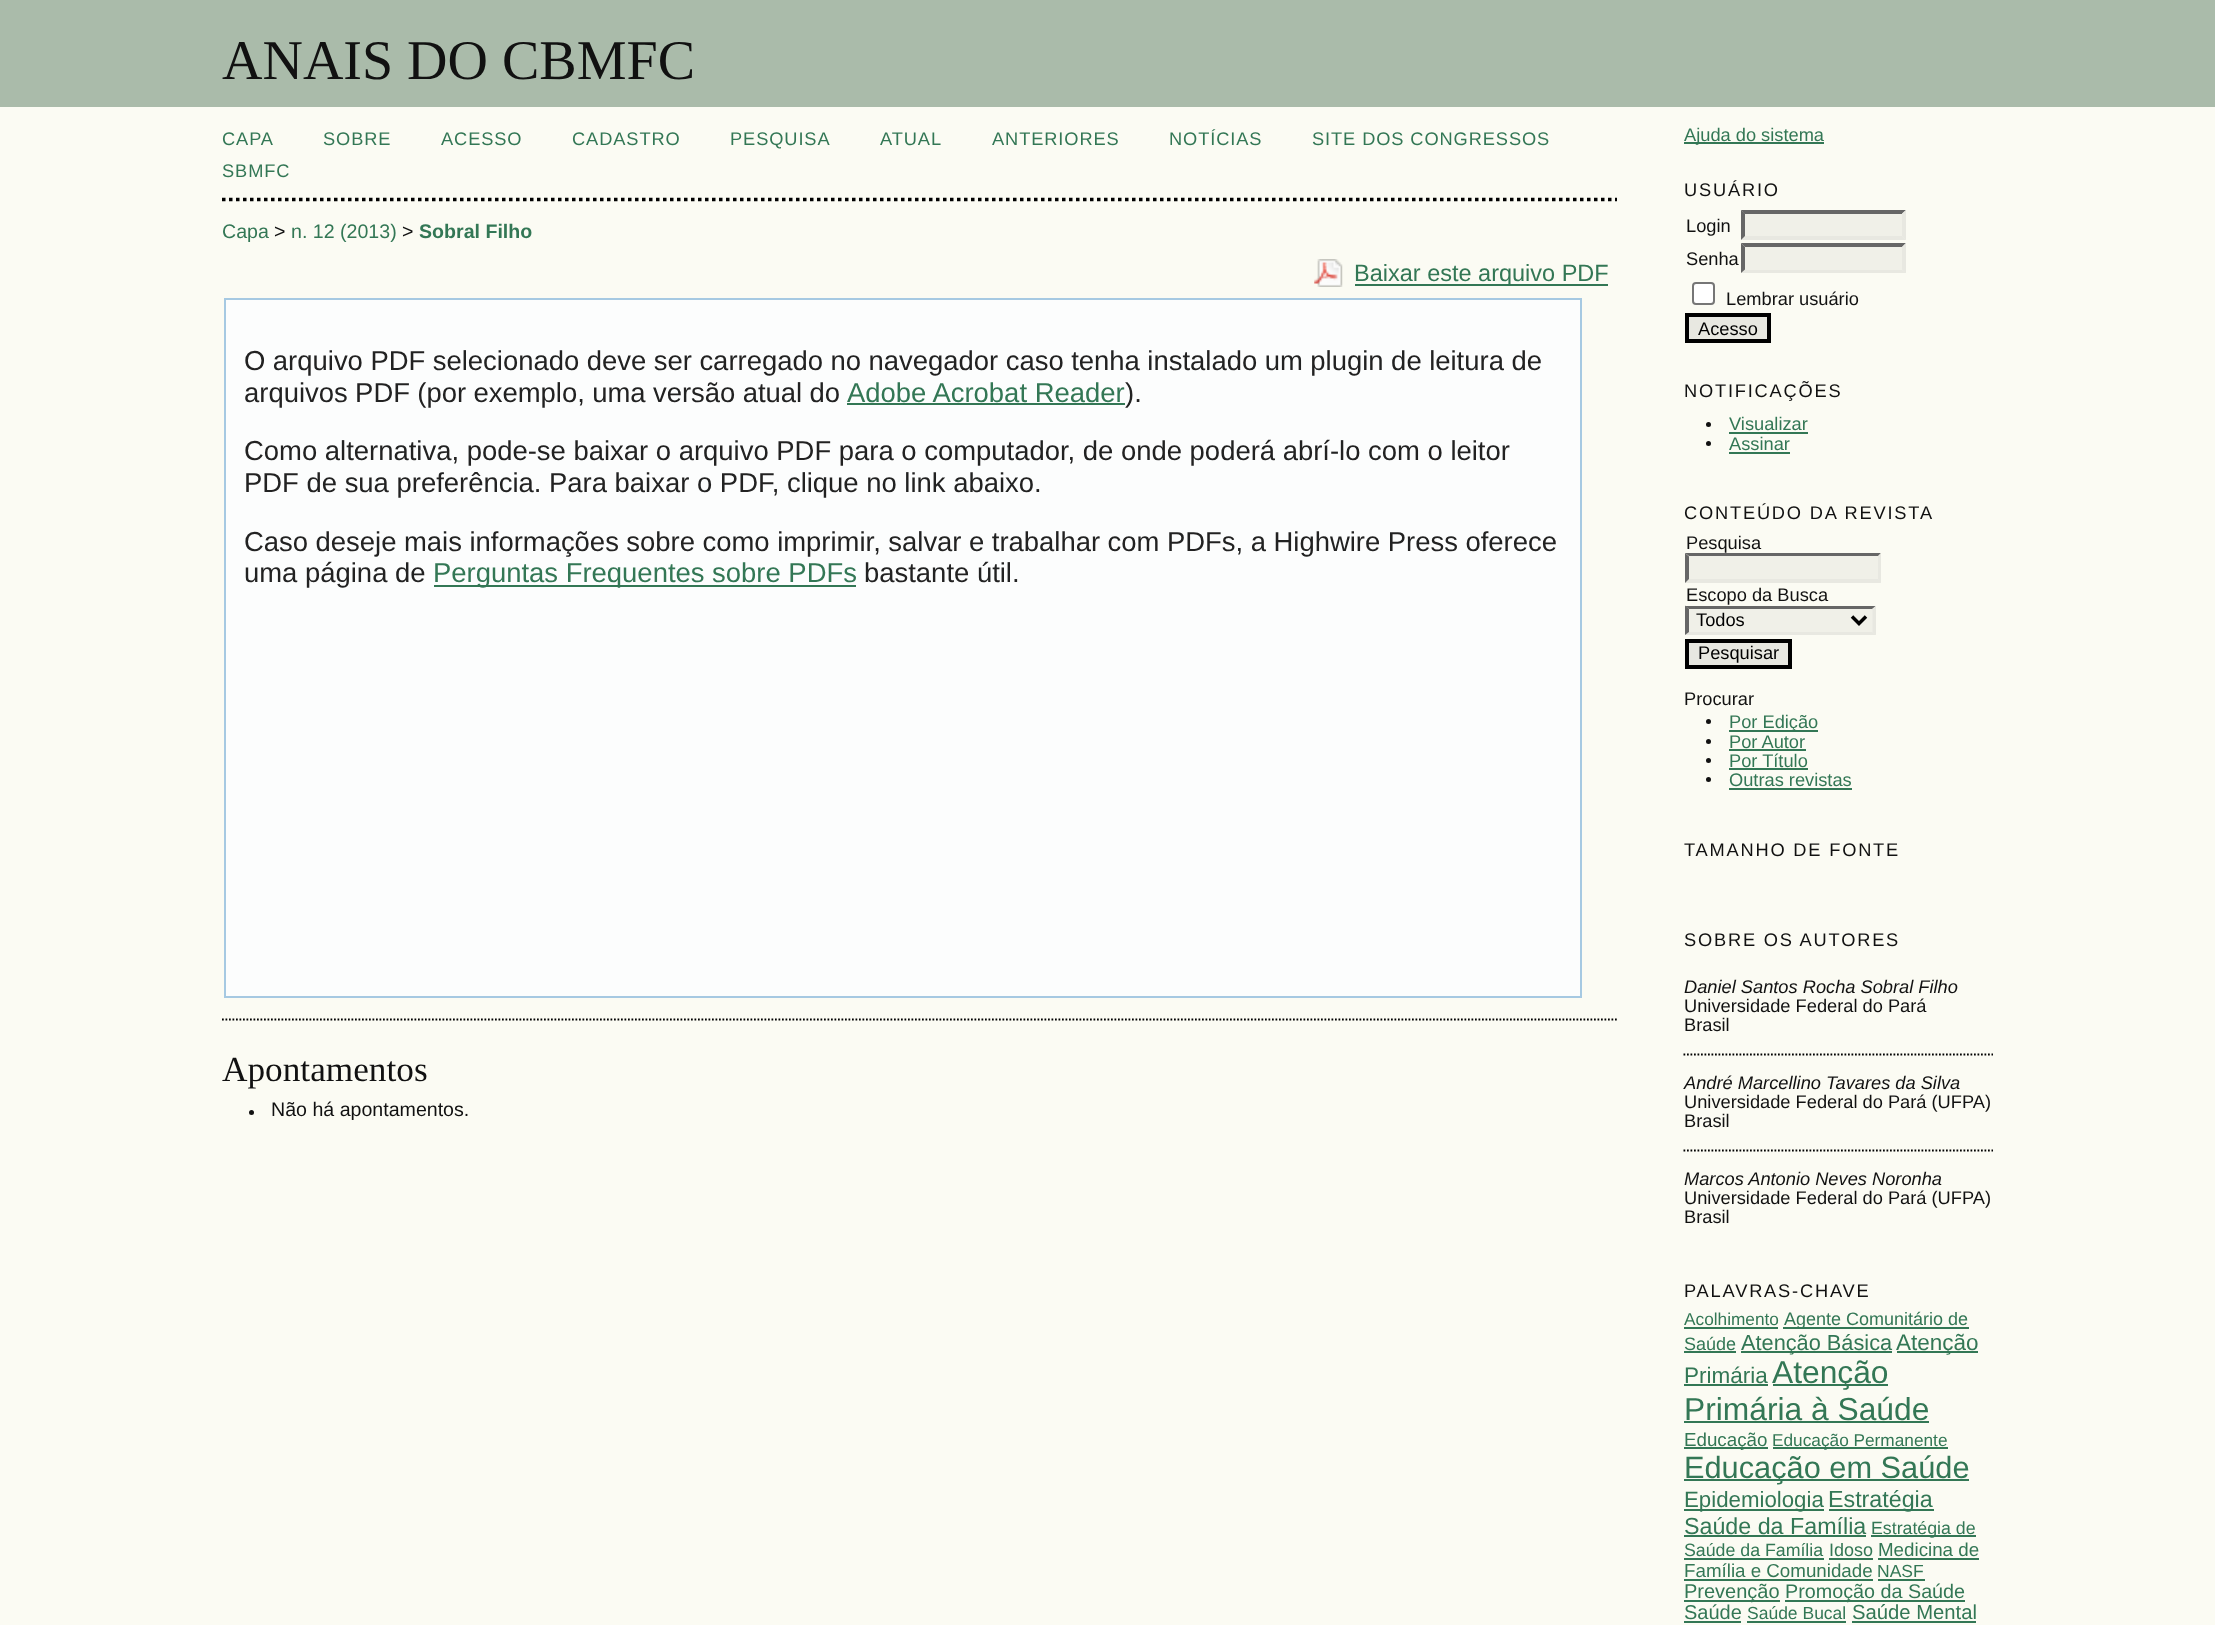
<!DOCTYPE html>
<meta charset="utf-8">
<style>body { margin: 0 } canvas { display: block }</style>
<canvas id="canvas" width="2215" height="1625"></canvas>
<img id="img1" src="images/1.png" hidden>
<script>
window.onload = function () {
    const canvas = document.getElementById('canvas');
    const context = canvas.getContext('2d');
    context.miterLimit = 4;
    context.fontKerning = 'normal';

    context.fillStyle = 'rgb(251, 251, 243)';
    context.fillRect(0, 0, 2215, 1625);
    context.fillStyle = 'rgb(170, 187, 170)';
    context.fillRect(0, 0, 2215, 107);
    context.beginPath();
    context.moveTo(222, 199.5);
    context.lineTo(1617, 199.5);
    context.strokeStyle = 'rgb(0, 0, 0)';
    context.lineWidth = 3.5;
    context.setLineDash([3.5, 3.5]);
    context.stroke();
    context.drawImage(document.getElementById('img1'), 1314, 259, 29, 28);
    context.fillStyle = 'rgb(51, 119, 85)';
    context.fillRect(1355, 284, 253, 2);
    context.fillStyle = 'rgb(252, 253, 253)';
    context.beginPath();
    context.rect(225, 299, 1356, 698);
    context.fill();
    context.strokeStyle = 'rgb(166, 201, 226)';
    context.lineWidth = 2;
    context.setLineDash([]);
    context.stroke();
    context.fillStyle = 'rgb(51, 119, 85)';
    context.fillRect(847, 403, 278, 2);
    context.fillRect(434, 585, 422, 2);
    context.beginPath();
    context.moveTo(222, 1019.5);
    context.lineTo(1617, 1019.5);
    context.strokeStyle = 'rgb(0, 0, 0)';
    context.lineWidth = 1.8;
    context.setLineDash([1.75, 1.75]);
    context.stroke();
    context.fillStyle = 'rgb(17, 17, 17)';
    context.beginPath();
    context.arc(251.5, 1112.5, 2.5, 0, 2 * Math.PI);
    context.fill();
    context.fillStyle = 'rgb(51, 119, 85)';
    context.fillRect(1684, 142, 140, 2);
    context.fillStyle = 'rgb(240, 240, 232)';
    context.fillRect(1741, 210, 165, 30);
    context.fillStyle = 'rgb(102, 102, 102)';
    context.beginPath();
    context.moveTo(1741, 210);
    context.lineTo(1906, 210);
    context.lineTo(1902, 214);
    context.lineTo(1745, 214);
    context.closePath();
    context.fill();
    context.fillStyle = 'rgb(232, 232, 225)';
    context.beginPath();
    context.moveTo(1906, 210);
    context.lineTo(1906, 240);
    context.lineTo(1902, 236);
    context.lineTo(1902, 213.5);
    context.closePath();
    context.fill();
    context.beginPath();
    context.moveTo(1906, 240);
    context.lineTo(1741, 240);
    context.lineTo(1745, 236);
    context.lineTo(1902, 236);
    context.closePath();
    context.fill();
    context.fillStyle = 'rgb(102, 102, 102)';
    context.beginPath();
    context.moveTo(1741, 240);
    context.lineTo(1741, 210);
    context.lineTo(1745, 213.5);
    context.lineTo(1745, 236);
    context.closePath();
    context.fill();
    context.fillStyle = 'rgb(240, 240, 232)';
    context.fillRect(1741, 243, 165, 30);
    context.fillStyle = 'rgb(102, 102, 102)';
    context.beginPath();
    context.moveTo(1741, 243);
    context.lineTo(1906, 243);
    context.lineTo(1902, 247);
    context.lineTo(1745, 247);
    context.closePath();
    context.fill();
    context.fillStyle = 'rgb(232, 232, 225)';
    context.beginPath();
    context.moveTo(1906, 243);
    context.lineTo(1906, 273);
    context.lineTo(1902, 269.5);
    context.lineTo(1902, 247);
    context.closePath();
    context.fill();
    context.beginPath();
    context.moveTo(1906, 273);
    context.lineTo(1741, 273);
    context.lineTo(1745, 270);
    context.lineTo(1902, 270);
    context.closePath();
    context.fill();
    context.fillStyle = 'rgb(102, 102, 102)';
    context.beginPath();
    context.moveTo(1741, 273);
    context.lineTo(1741, 243);
    context.lineTo(1745, 247);
    context.lineTo(1745, 269.5);
    context.closePath();
    context.fill();
    context.fillStyle = 'rgb(255, 255, 255)';
    context.beginPath();
    context.roundRect(1693, 283, 21, 21, 3);
    context.fill();
    context.strokeStyle = 'rgb(118, 118, 118)';
    context.lineWidth = 2;
    context.setLineDash([]);
    context.stroke();
    context.fillStyle = 'rgb(232, 232, 225)';
    context.beginPath();
    context.rect(1687, 315, 82, 26);
    context.fill();
    context.strokeStyle = 'rgb(0, 0, 0)';
    context.lineWidth = 4;
    context.stroke();
    context.fillStyle = 'rgb(17, 17, 17)';
    context.beginPath();
    context.arc(1708.5, 424.5, 2.5, 0, 2 * Math.PI);
    context.fill();
    context.fillStyle = 'rgb(51, 119, 85)';
    context.fillRect(1729, 432, 79, 2);
    context.fillStyle = 'rgb(17, 17, 17)';
    context.beginPath();
    context.arc(1708.5, 443.5, 2.5, 0, 2 * Math.PI);
    context.fill();
    context.fillStyle = 'rgb(51, 119, 85)';
    context.fillRect(1729, 452, 61, 2);
    context.fillStyle = 'rgb(240, 240, 232)';
    context.fillRect(1685, 553, 196, 30);
    context.fillStyle = 'rgb(102, 102, 102)';
    context.beginPath();
    context.moveTo(1685, 553);
    context.lineTo(1881, 553);
    context.lineTo(1878, 556);
    context.lineTo(1689, 556);
    context.closePath();
    context.fill();
    context.fillStyle = 'rgb(232, 232, 225)';
    context.beginPath();
    context.moveTo(1881, 553);
    context.lineTo(1881, 583);
    context.lineTo(1878, 579);
    context.lineTo(1878, 556.5);
    context.closePath();
    context.fill();
    context.beginPath();
    context.moveTo(1881, 583);
    context.lineTo(1685, 583);
    context.lineTo(1689, 579);
    context.lineTo(1878, 579);
    context.closePath();
    context.fill();
    context.fillStyle = 'rgb(102, 102, 102)';
    context.beginPath();
    context.moveTo(1685, 583);
    context.lineTo(1685, 553);
    context.lineTo(1689, 556.5);
    context.lineTo(1689, 579);
    context.closePath();
    context.fill();
    context.fillStyle = 'rgb(240, 240, 232)';
    context.fillRect(1685, 606, 191, 29);
    context.fillStyle = 'rgb(102, 102, 102)';
    context.beginPath();
    context.moveTo(1685, 606);
    context.lineTo(1876, 606);
    context.lineTo(1872, 609);
    context.lineTo(1689, 609);
    context.closePath();
    context.fill();
    context.fillStyle = 'rgb(232, 232, 225)';
    context.beginPath();
    context.moveTo(1876, 605.5);
    context.lineTo(1876, 635);
    context.lineTo(1872.5, 632);
    context.lineTo(1872.5, 609);
    context.closePath();
    context.fill();
    context.beginPath();
    context.moveTo(1876, 635);
    context.lineTo(1685, 635);
    context.lineTo(1689, 632);
    context.lineTo(1872, 632);
    context.closePath();
    context.fill();
    context.fillStyle = 'rgb(102, 102, 102)';
    context.beginPath();
    context.moveTo(1685, 635);
    context.lineTo(1685, 605.5);
    context.lineTo(1689, 609);
    context.lineTo(1689, 632);
    context.closePath();
    context.fill();
    context.beginPath();
    context.moveTo(1852, 616.5);
    context.lineTo(1859, 623.5);
    context.lineTo(1866, 616.5);
    context.lineWidth = 3.5;
    context.stroke();
    context.fillStyle = 'rgb(232, 232, 225)';
    context.beginPath();
    context.rect(1687, 641, 103, 26);
    context.fill();
    context.lineWidth = 4;
    context.stroke();
    context.fillStyle = 'rgb(17, 17, 17)';
    context.beginPath();
    context.arc(1708.5, 721.5, 2.5, 0, 2 * Math.PI);
    context.fill();
    context.fillStyle = 'rgb(51, 119, 85)';
    context.fillRect(1729, 730, 89, 2);
    context.fillStyle = 'rgb(17, 17, 17)';
    context.beginPath();
    context.arc(1708.5, 741.5, 2.5, 0, 2 * Math.PI);
    context.fill();
    context.fillStyle = 'rgb(51, 119, 85)';
    context.fillRect(1729, 749, 77, 2);
    context.fillStyle = 'rgb(17, 17, 17)';
    context.beginPath();
    context.arc(1708.5, 760.5, 2.5, 0, 2 * Math.PI);
    context.fill();
    context.fillStyle = 'rgb(51, 119, 85)';
    context.fillRect(1729, 768, 79, 2);
    context.fillStyle = 'rgb(17, 17, 17)';
    context.beginPath();
    context.arc(1708.5, 779.5, 2.5, 0, 2 * Math.PI);
    context.fill();
    context.fillStyle = 'rgb(51, 119, 85)';
    context.fillRect(1729, 788, 123, 2);
    context.beginPath();
    context.moveTo(1683.5, 1054.5);
    context.lineTo(1993, 1054.5);
    context.lineWidth = 1.8;
    context.setLineDash([1.75, 1.75]);
    context.stroke();
    context.beginPath();
    context.moveTo(1683.5, 1150.5);
    context.lineTo(1993, 1150.5);
    context.stroke();
    context.fillRect(1684, 1327, 94, 2);
    context.fillRect(1783, 1327, 186, 2);
    context.fillRect(1684, 1351, 52, 2);
    context.fillRect(1741, 1351, 151, 2);
    context.fillRect(1897, 1351, 81, 2);
    context.fillRect(1684, 1384, 84, 2);
    context.fillRect(1773, 1384, 115, 2);
    context.fillRect(1684, 1421, 245, 2);
    context.fillRect(1684, 1447, 84, 2);
    context.fillRect(1773, 1447, 175, 2);
    context.fillRect(1684, 1479, 285, 2);
    context.fillRect(1684, 1509, 140, 2);
    context.fillRect(1829, 1509, 105, 2);
    context.fillRect(1684, 1535, 182, 2);
    context.fillRect(1871, 1535, 105, 2);
    context.fillRect(1684, 1558, 140, 2);
    context.fillRect(1829, 1558, 44, 2);
    context.fillRect(1878, 1558, 101, 2);
    context.fillRect(1684, 1579, 189, 2);
    context.fillRect(1878, 1579, 47, 2);
    context.fillRect(1684, 1600, 96, 2);
    context.fillRect(1785, 1600, 180, 2);
    context.fillRect(1684, 1621, 57, 2);
    context.fillRect(1747, 1621, 99, 2);
    context.fillRect(1852, 1621, 124, 2);
    context.font = '56px Liberation Serif';
    context.fillStyle = 'rgb(17, 17, 17)';
    context.fillText('ANAIS DO CBMFC', 222, 79);
    context.letterSpacing = '0.9px';
    context.font = '18.25px Liberation Sans';
    context.fillStyle = 'rgb(51, 119, 85)';
    context.fillText('CAPA', 222, 145);
    context.fillText('SOBRE', 323, 145);
    context.fillText('ACESSO', 441, 145);
    context.fillText('CADASTRO', 572, 145);
    context.fillText('PESQUISA', 730, 145);
    context.fillText('ATUAL', 880, 145);
    context.fillText('ANTERIORES', 992, 145);
    context.fillText('NOTÍCIAS', 1169, 145);
    context.fillText('SITE DOS CONGRESSOS', 1312, 145);
    context.fillText('SBMFC', 222, 177);
    context.letterSpacing = '0px';
    context.font = '19.6px Liberation Sans';
    context.fillText('Capa', 222, 238);
    context.fillStyle = 'rgb(17, 17, 17)';
    context.fillText('>', 274, 238);
    context.fillStyle = 'rgb(51, 119, 85)';
    context.fillText('n. 12 (2013)', 291, 238);
    context.fillStyle = 'rgb(17, 17, 17)';
    context.fillText('>', 402, 238);
    context.font = 'bold 19.6px Liberation Sans';
    context.fillStyle = 'rgb(51, 119, 85)';
    context.fillText('Sobral Filho', 419, 238);
    context.font = '23.5px Liberation Sans';
    context.fillText('Baixar este arquivo PDF', 1354, 281);
    context.wordSpacing = '-0.1px';
    context.font = '27.45px Liberation Sans';
    context.fillStyle = 'rgb(34, 34, 34)';
    context.fillText('O arquivo PDF selecionado deve ser carregado no navegador caso tenha instalado um plugin de leitura de', 244, 370);
    context.wordSpacing = '-0.25px';
    context.fillText('arquivos PDF (por exemplo, uma versão atual do', 244, 402);
    context.wordSpacing = '0px';
    context.fillStyle = 'rgb(51, 119, 85)';
    context.fillText('Adobe Acrobat Reader', 847, 402);
    context.fillStyle = 'rgb(34, 34, 34)';
    context.fillText(').', 1125, 402);
    context.fillText('Como alternativa, pode-se baixar o arquivo PDF para o computador, de onde poderá abrí-lo com o leitor', 244, 460);
    context.fillText('PDF de sua preferência. Para baixar o PDF, clique no link abaixo.', 244, 492);
    context.wordSpacing = '-0.1px';
    context.fillText('Caso deseje mais informações sobre como imprimir, salvar e trabalhar com PDFs, a Highwire Press oferece', 244, 551);
    context.wordSpacing = '0px';
    context.fillText('uma página de', 244, 582);
    context.fillStyle = 'rgb(51, 119, 85)';
    context.fillText('Perguntas Frequentes sobre PDFs', 433, 582);
    context.fillStyle = 'rgb(34, 34, 34)';
    context.fillText('bastante útil.', 864, 582);
    context.font = '35.25px Liberation Serif';
    context.fillStyle = 'rgb(17, 17, 17)';
    context.fillText('Apontamentos', 222, 1081);
    context.font = '19.6px Liberation Sans';
    context.fillText('Não há apontamentos.', 271, 1116);
    context.font = '18.25px Liberation Sans';
    context.fillStyle = 'rgb(51, 119, 85)';
    context.fillText('Ajuda do sistema', 1684, 141);
    context.letterSpacing = '1.8px';
    context.fillStyle = 'rgb(17, 17, 17)';
    context.fillText('USUÁRIO', 1684, 196);
    context.letterSpacing = '0px';
    context.fillText('Login', 1686, 232);
    context.fillText('Senha', 1686, 265);
    context.fillText('Lembrar usuário', 1726, 305);
    context.fillStyle = 'rgb(0, 0, 0)';
    context.fillText('Acesso', 1698, 335);
    context.letterSpacing = '1.8px';
    context.fillStyle = 'rgb(17, 17, 17)';
    context.fillText('NOTIFICAÇÕES', 1684, 397);
    context.letterSpacing = '0px';
    context.fillStyle = 'rgb(51, 119, 85)';
    context.fillText('Visualizar', 1729, 430);
    context.fillText('Assinar', 1729, 450);
    context.letterSpacing = '1.8px';
    context.fillStyle = 'rgb(17, 17, 17)';
    context.fillText('CONTEÚDO DA REVISTA', 1684, 519);
    context.letterSpacing = '0px';
    context.fillText('Pesquisa', 1686, 549);
    context.fillText('Escopo da Busca', 1686, 601);
    context.fillStyle = 'rgb(0, 0, 0)';
    context.fillText('Todos', 1696, 626);
    context.fillText('Pesquisar', 1698, 659);
    context.fillStyle = 'rgb(17, 17, 17)';
    context.fillText('Procurar', 1684, 705);
    context.fillStyle = 'rgb(51, 119, 85)';
    context.fillText('Por Edição', 1729, 728);
    context.fillText('Por Autor', 1729, 748);
    context.fillText('Por Título', 1729, 767);
    context.fillText('Outras revistas', 1729, 786);
    context.letterSpacing = '1.8px';
    context.fillStyle = 'rgb(17, 17, 17)';
    context.fillText('TAMANHO DE FONTE', 1684, 856);
    context.fillText('SOBRE OS AUTORES', 1684, 946);
    context.letterSpacing = '0px';
    context.font = 'italic 18.25px Liberation Sans';
    context.fillText('Daniel Santos Rocha Sobral Filho', 1684, 993);
    context.font = '18.25px Liberation Sans';
    context.fillText('Universidade Federal do Pará', 1684, 1012);
    context.fillText('Brasil', 1684, 1031);
    context.font = 'italic 18.25px Liberation Sans';
    context.fillText('André Marcellino Tavares da Silva', 1684, 1089);
    context.font = '18.25px Liberation Sans';
    context.fillText('Universidade Federal do Pará (UFPA)', 1684, 1108);
    context.fillText('Brasil', 1684, 1127);
    context.font = 'italic 18.25px Liberation Sans';
    context.fillText('Marcos Antonio Neves Noronha', 1684, 1185);
    context.font = '18.25px Liberation Sans';
    context.fillText('Universidade Federal do Pará (UFPA)', 1684, 1204);
    context.fillText('Brasil', 1684, 1223);
    context.letterSpacing = '1.8px';
    context.fillText('PALAVRAS-CHAVE', 1684, 1297);
    context.letterSpacing = '0px';
    context.font = '17.25px Liberation Sans';
    context.fillStyle = 'rgb(51, 119, 85)';
    context.fillText('Acolhimento', 1684, 1325);
    context.font = '18px Liberation Sans';
    context.fillText('Agente Comunitário de', 1784, 1325);
    context.fillText('Saúde', 1684, 1350);
    context.font = '21.75px Liberation Sans';
    context.fillText('Atenção Básica', 1741, 1350);
    context.font = '22.5px Liberation Sans';
    context.fillText('Atenção', 1896, 1350);
    context.fillText('Primária', 1684, 1383);
    context.font = '31.75px Liberation Sans';
    context.fillText('Atenção', 1772, 1383);
    context.fillText('Primária à Saúde', 1684, 1420);
    context.font = '18.75px Liberation Sans';
    context.fillText('Educação', 1684, 1446);
    context.font = '17.25px Liberation Sans';
    context.fillText('Educação Permanente', 1772, 1446);
    context.font = '30.75px Liberation Sans';
    context.fillText('Educação em Saúde', 1684, 1478);
    context.font = '22.25px Liberation Sans';
    context.fillText('Epidemiologia', 1684, 1507);
    context.font = '23.25px Liberation Sans';
    context.fillText('Estratégia', 1828, 1507);
    context.fillText('Saúde da Família', 1684, 1534);
    context.font = '17.75px Liberation Sans';
    context.fillText('Estratégia de', 1871, 1534);
    context.fillText('Saúde da Família', 1684, 1556);
    context.font = '18px Liberation Sans';
    context.fillText('Idoso', 1829, 1556);
    context.font = '18.75px Liberation Sans';
    context.fillText('Medicina de', 1878, 1556);
    context.fillText('Família e Comunidade', 1684, 1577);
    context.font = '17.5px Liberation Sans';
    context.fillText('NASF', 1877, 1577);
    context.font = '20px Liberation Sans';
    context.fillText('Prevenção', 1684, 1598);
    context.font = '19.75px Liberation Sans';
    context.fillText('Promoção da Saúde', 1785, 1598);
    context.font = '20px Liberation Sans';
    context.fillText('Saúde', 1684, 1619);
    context.font = '17.5px Liberation Sans';
    context.fillText('Saúde Bucal', 1747, 1619);
    context.font = '20.25px Liberation Sans';
    context.fillText('Saúde Mental', 1852, 1619);
};
</script>
